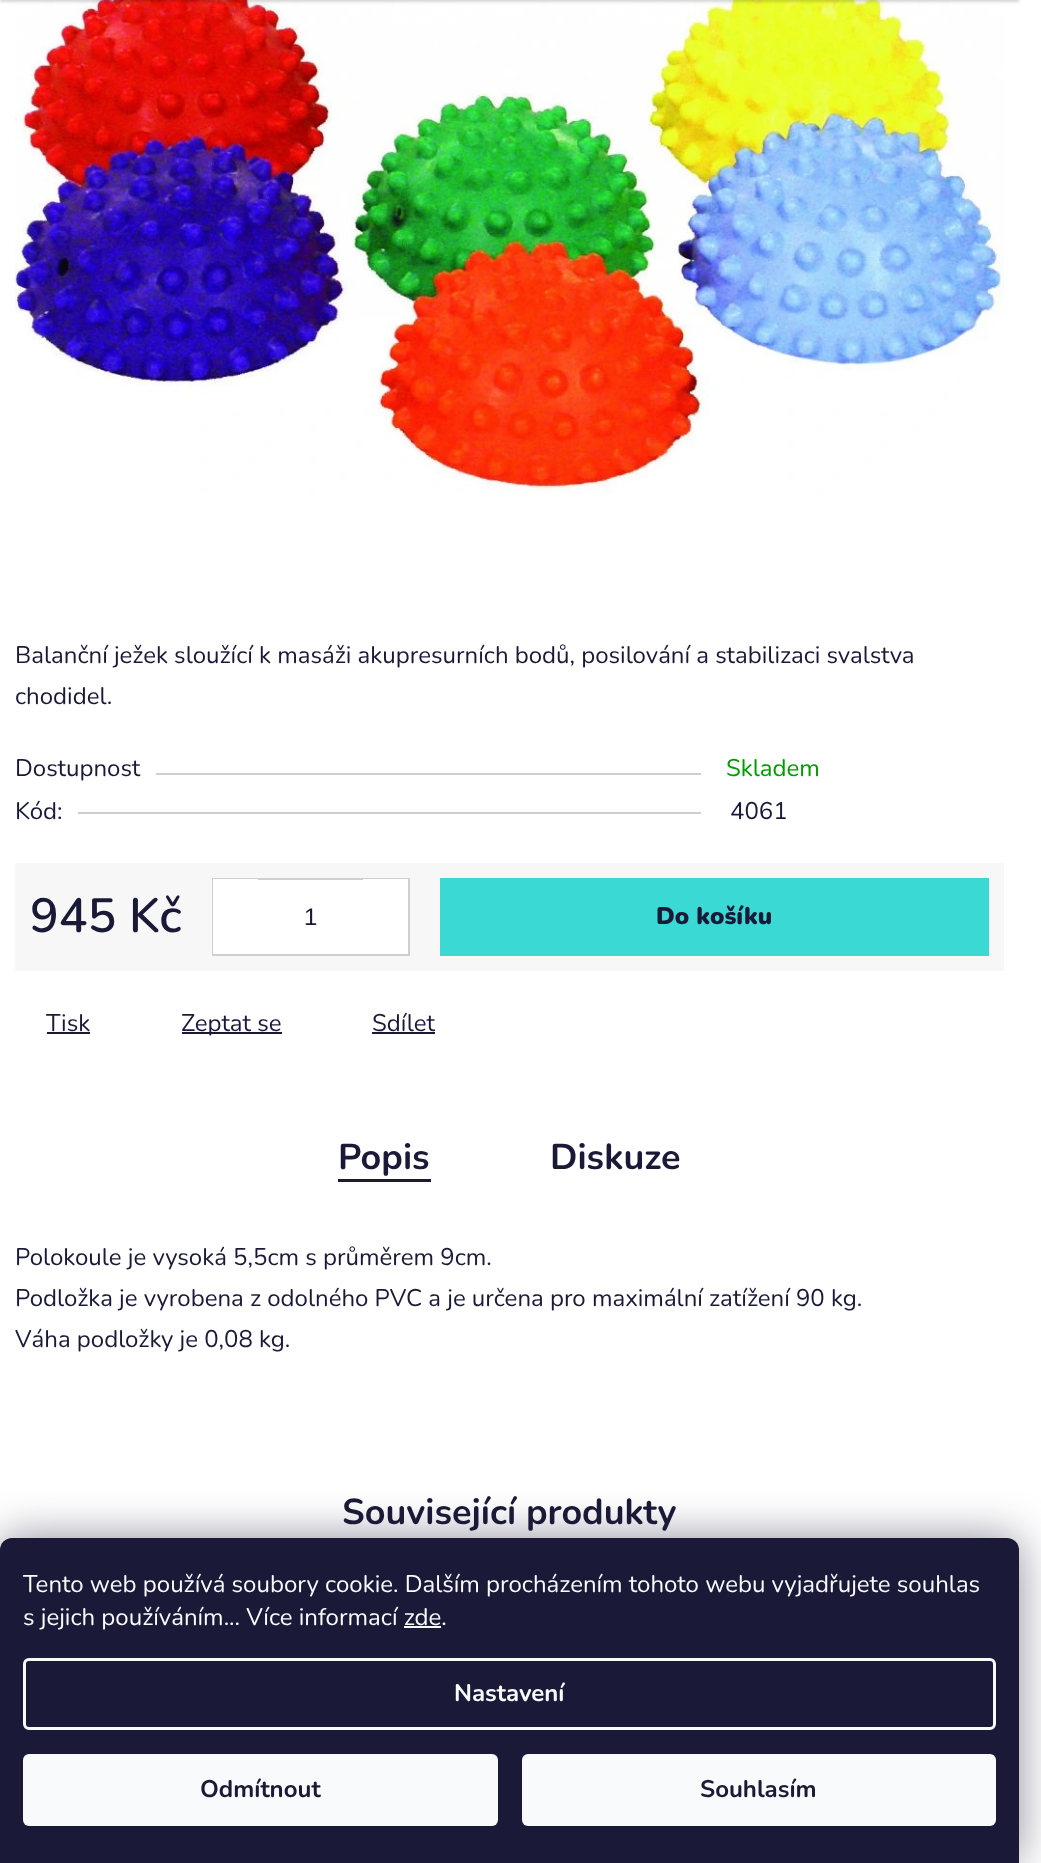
<!DOCTYPE html>
<meta charset="utf-8">
<style>body { margin: 0 } canvas { display: block }</style>
<canvas id="canvas" width="1041" height="1863"></canvas>
<img id="img1" src="images/1.png" hidden>
<script>
window.onload = function () {
    const canvas = document.getElementById('canvas');
    const context = canvas.getContext('2d');
    context.miterLimit = 4;
    context.fontKerning = 'normal';

    context.fillStyle = 'rgb(255, 255, 255)';
    context.fillRect(0, 0, 1041, 1863);
    context.drawImage(document.getElementById('img1'), 15, 0, 989, 494);
    context.fillStyle = 'rgba(0, 0, 0, 0.16)';
    context.filter = 'blur(1.5px)';
    context.beginPath();
    context.rect(0, -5, 1019, 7);
    context.fill();
    context.filter = 'none';
    context.fillStyle = 'rgb(207, 207, 207)';
    context.fillRect(156, 773, 545, 2);
    context.fillRect(78, 812, 623, 2);
    context.fillStyle = 'rgb(247, 247, 247)';
    context.fillRect(15, 863, 989, 108);
    context.fillStyle = 'rgb(255, 255, 255)';
    context.fillRect(258, 880, 105, 74);
    context.strokeStyle = 'rgb(207, 207, 207)';
    context.lineWidth = 2;
    context.strokeRect(213, 879, 196, 76);
    context.fillRect(213, 879, 45, 75);
    context.fillRect(363, 879, 45, 75);
    context.fillStyle = 'rgb(59, 217, 212)';
    context.fillRect(440, 878, 549, 78);
    context.fillStyle = 'rgb(26, 25, 55)';
    context.fillRect(47, 1032, 43, 2);
    context.fillRect(182, 1032, 100, 2);
    context.fillRect(372, 1032, 63, 2);
    context.fillRect(338, 1179, 93, 3);
    context.fillStyle = 'rgba(27, 25, 57, 0.5)';
    context.filter = 'blur(22.5px)';
    context.beginPath();
    context.roundRect(0, 1538, 1019, 325, 12);
    context.fill();
    context.filter = 'none';
    context.fillStyle = 'rgb(26, 25, 55)';
    context.beginPath();
    context.roundRect(0, 1538, 1019, 325, [12, 12, 0, 0]);
    context.fill();
    context.fillStyle = 'rgb(248, 250, 251)';
    context.fillRect(404, 1626, 37, 2);
    context.beginPath();
    context.roundRect(24.5, 1659.5, 970, 69, 4.5);
    context.strokeStyle = 'rgb(248, 250, 251)';
    context.lineWidth = 3;
    context.stroke();
    context.beginPath();
    context.roundRect(23, 1754, 475, 72, 6);
    context.fill();
    context.beginPath();
    context.roundRect(522, 1754, 474, 72, 6);
    context.fill();
    context.font = '24px Nunito';
    context.fillStyle = 'rgb(26, 25, 55)';
    context.fillText('Balanční ježek sloužící k masáži akupresurních bodů, posilování a stabilizaci svalstva', 15, 663);
    context.fillText('chodidel.', 15, 704);
    context.fillText('Dostupnost', 15, 776);
    context.fillStyle = 'rgb(0, 153, 1)';
    context.fillText('Skladem', 726, 776);
    context.fillStyle = 'rgb(26, 25, 55)';
    context.fillText('Kód:', 15, 819);
    context.fillText('4061', 730, 819);
    context.font = '600 48px Nunito';
    context.fillText('945 Kč', 30, 932);
    context.font = '24px Liberation Sans';
    context.fillText('1', 304, 925);
    context.font = '900 24px Nunito';
    context.fillText('Do košíku', 656, 924);
    context.font = '24px Nunito';
    context.fillText('Tisk', 46, 1031);
    context.fillText('Zeptat se', 181, 1031);
    context.fillText('Sdílet', 372, 1031);
    context.font = 'bold 36px Nunito';
    context.fillText('Popis', 338, 1169);
    context.fillText('Diskuze', 550, 1169);
    context.font = '24px Nunito';
    context.fillText('Polokoule je vysoká 5,5cm s průměrem 9cm.', 15, 1265);
    context.fillText('Podložka je vyrobena z odolného PVC a je určena pro maximální zatížení 90 kg.', 15, 1306);
    context.fillText('Váha podložky je 0,08 kg.', 15, 1347);
    context.font = 'bold 36px Nunito';
    context.fillText('Související produkty', 342, 1524);
    context.font = '24px Nunito';
    context.fillStyle = 'rgb(248, 250, 251)';
    context.fillText('Tento web používá soubory cookie. Dalším procházením tohoto webu vyjadřujete souhlas', 23, 1592);
    context.fillText('s jejich používáním... Více informací zde.', 23, 1625);
    context.font = 'bold 24px Nunito';
    context.fillText('Nastavení', 454, 1701);
    context.fillStyle = 'rgb(26, 25, 55)';
    context.fillText('Odmítnout', 200, 1797);
    context.fillText('Souhlasím', 700, 1797);
};
</script>
